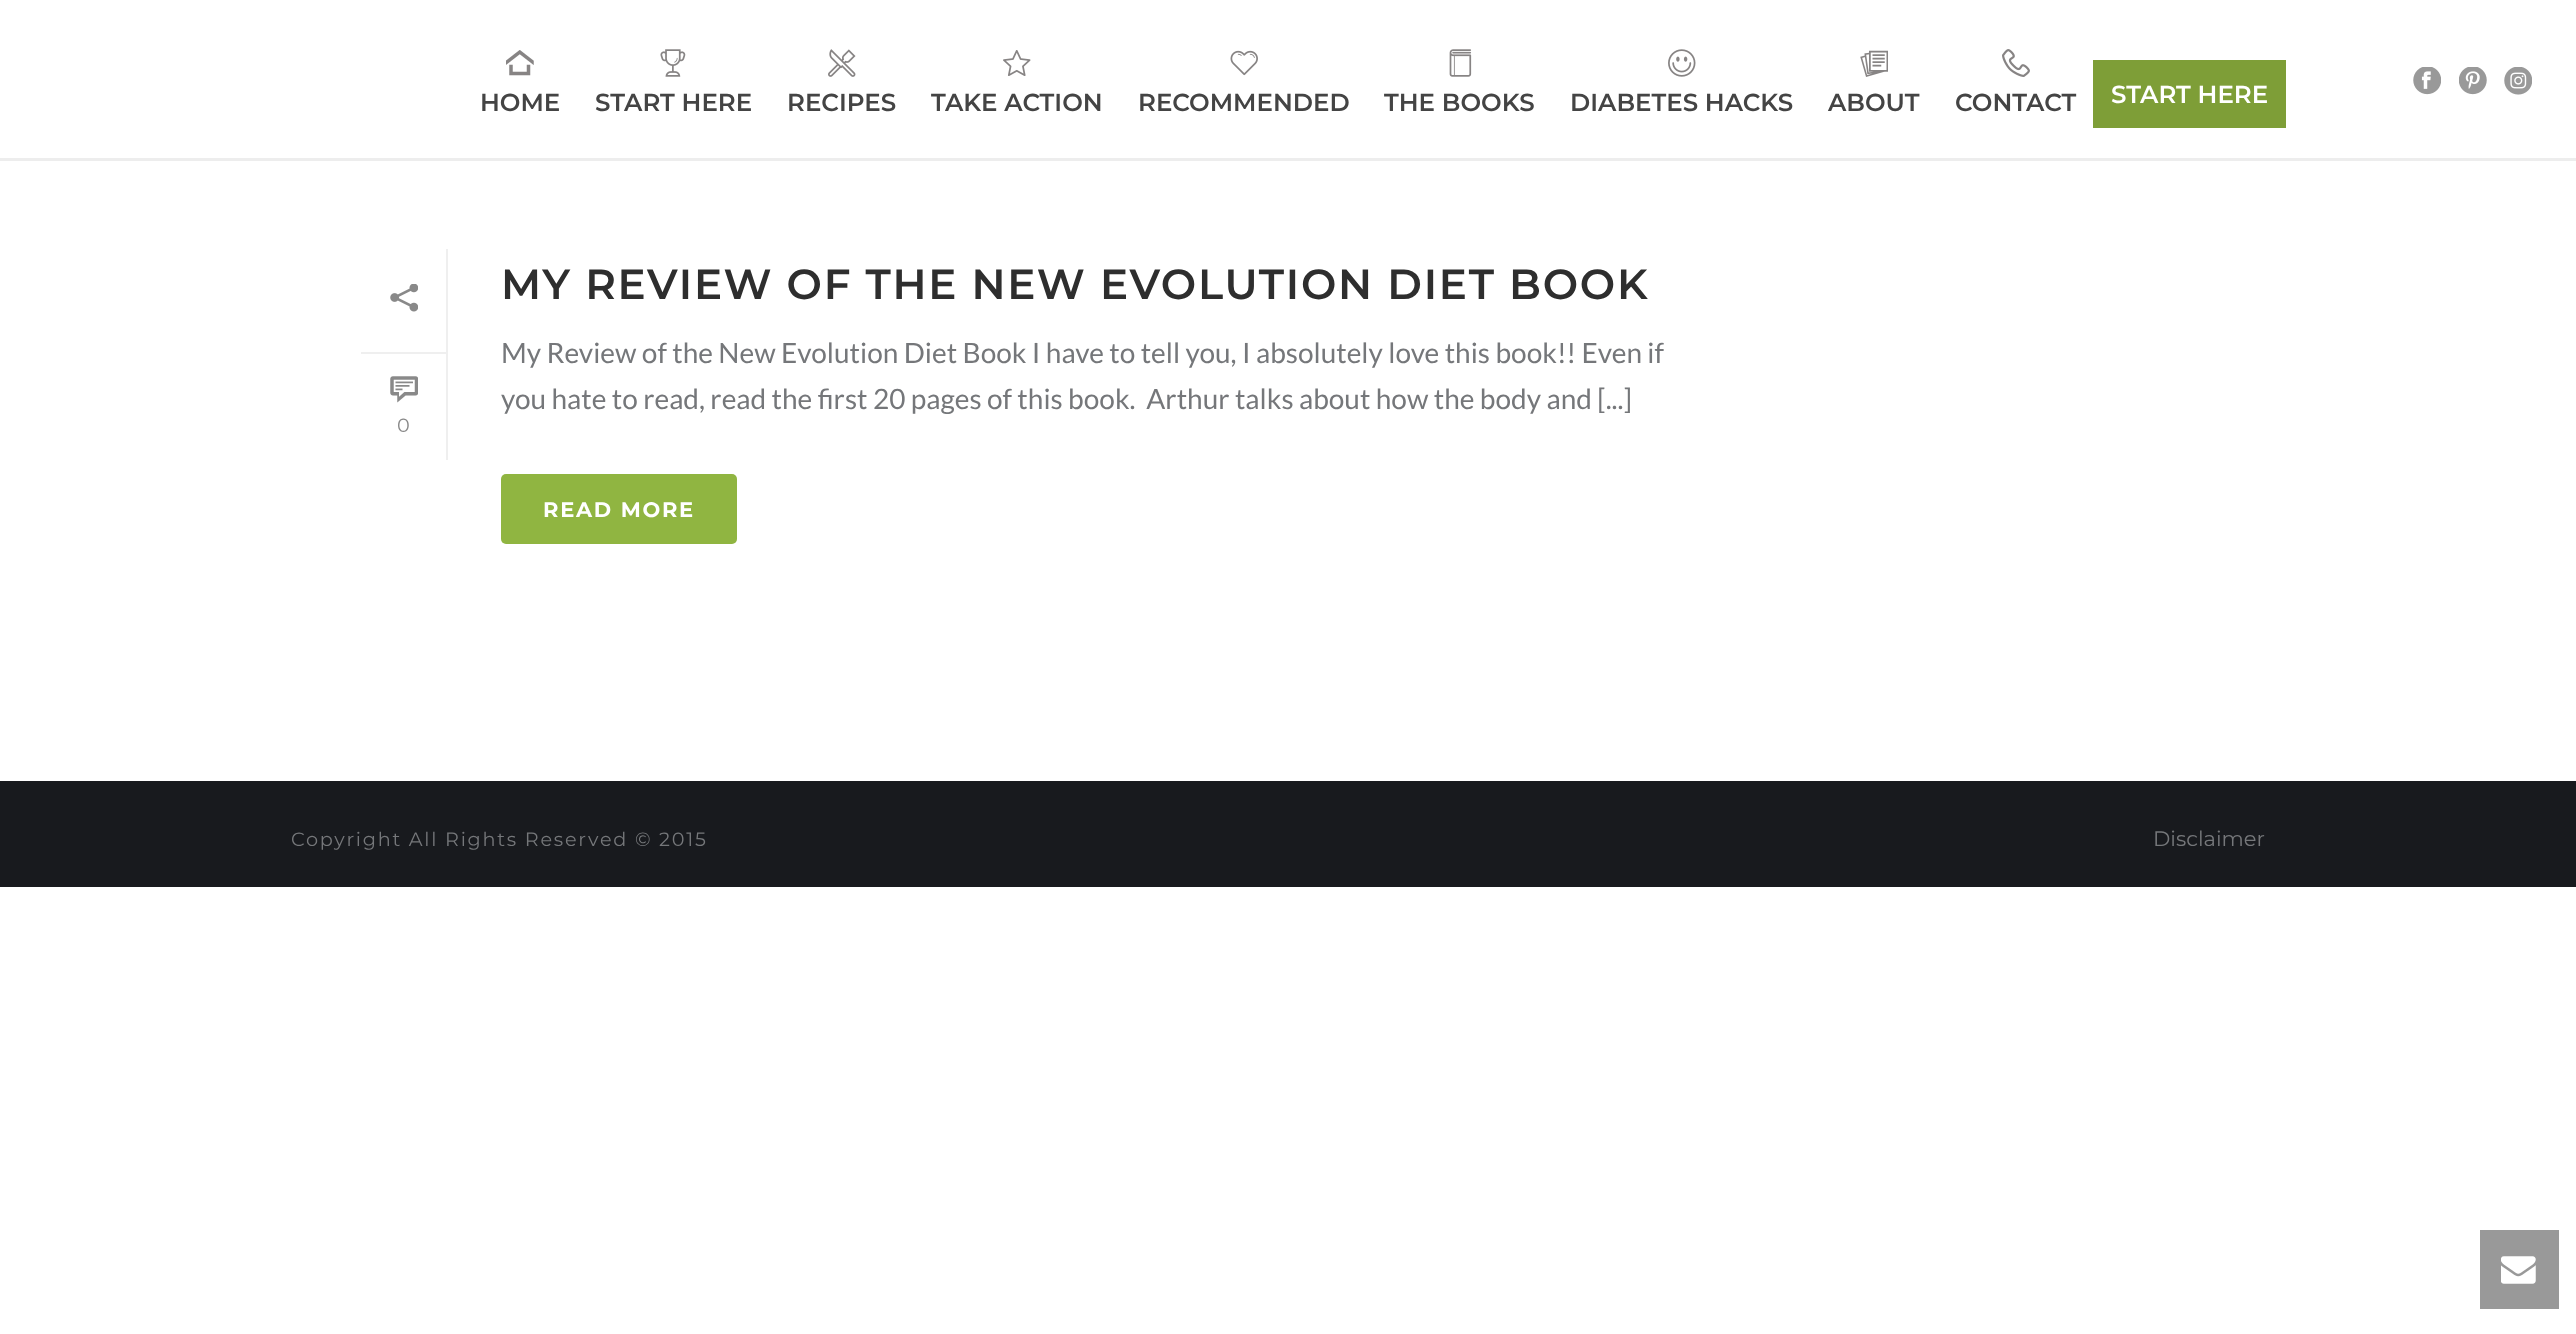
<!DOCTYPE html>
<meta charset="utf-8">
<style>body { margin: 0 } canvas { display: block }</style>
<canvas id="canvas" width="2576" height="1334"></canvas>
<img id="img1" src="images/1.png" hidden>
<img id="img2" src="images/2.png" hidden>
<img id="img3" src="images/3.png" hidden>
<img id="img4" src="images/4.png" hidden>
<img id="img5" src="images/5.png" hidden>
<img id="img6" src="images/6.png" hidden>
<img id="img7" src="images/7.png" hidden>
<img id="img8" src="images/8.png" hidden>
<img id="img9" src="images/9.png" hidden>
<img id="img10" src="images/10.png" hidden>
<img id="img11" src="images/11.png" hidden>
<img id="img12" src="images/12.png" hidden>
<img id="img13" src="images/13.png" hidden>
<img id="img14" src="images/14.png" hidden>
<img id="img15" src="images/15.png" hidden>
<script>
window.onload = function () {
    const canvas = document.getElementById('canvas');
    const context = canvas.getContext('2d');
    context.miterLimit = 4;
    context.fontKerning = 'normal';

    context.fillStyle = 'rgb(255, 255, 255)';
    context.fillRect(0, 0, 2576, 1334);
    context.fillStyle = 'rgb(237, 237, 237)';
    context.fillRect(0, 158, 2576, 3);
    context.drawImage(document.getElementById('img1'), 2413, 67, 28, 28);
    context.drawImage(document.getElementById('img2'), 2459, 67, 28, 28);
    context.drawImage(document.getElementById('img3'), 2504, 67, 28, 28);
    context.drawImage(document.getElementById('img4'), 506, 50, 28, 26);
    context.drawImage(document.getElementById('img5'), 660, 49, 26, 28);
    context.drawImage(document.getElementById('img6'), 828, 49, 28, 28);
    context.drawImage(document.getElementById('img7'), 1003, 50, 28, 26);
    context.drawImage(document.getElementById('img8'), 1230, 50, 28, 26);
    context.drawImage(document.getElementById('img9'), 1449, 49, 23, 28);
    context.drawImage(document.getElementById('img10'), 1668, 49, 28, 28);
    context.drawImage(document.getElementById('img11'), 1860, 50, 28, 27);
    context.drawImage(document.getElementById('img12'), 2002, 49, 28, 28);
    context.fillStyle = 'rgb(126, 158, 55)';
    context.fillRect(2093, 60, 193, 68);
    context.fillStyle = 'rgb(239, 239, 239)';
    context.fillRect(446, 249, 2, 211);
    context.fillRect(361, 352, 85, 2);
    context.drawImage(document.getElementById('img13'), 390, 284, 28, 28);
    context.drawImage(document.getElementById('img14'), 390, 376, 28, 27);
    context.fillStyle = 'rgb(144, 181, 65)';
    context.beginPath();
    context.roundRect(501, 474, 236, 70, 5);
    context.fill();
    context.fillStyle = 'rgb(24, 26, 30)';
    context.fillRect(0, 781, 2576, 106);
    context.fillStyle = 'rgb(153, 153, 153)';
    context.fillRect(2480, 1230, 79, 79);
    context.drawImage(document.getElementById('img15'), 2501, 1256, 35, 28);
    context.font = '600 24.5px Montserrat';
    context.fillStyle = 'rgb(68, 68, 68)';
    context.fillText('HOME', 480, 111);
    context.fillText('START HERE', 595, 111);
    context.fillText('RECIPES', 787, 111);
    context.fillText('TAKE ACTION', 931, 111);
    context.fillText('RECOMMENDED', 1138, 111);
    context.fillText('THE BOOKS', 1384, 111);
    context.fillText('DIABETES HACKS', 1570, 111);
    context.fillText('ABOUT', 1828, 111);
    context.fillText('CONTACT', 1955, 111);
    context.fillStyle = 'rgb(255, 255, 255)';
    context.fillText('START HERE', 2111, 103);
    context.font = '19.25px Montserrat';
    context.fillStyle = 'rgb(137, 137, 137)';
    context.fillText('0', 397, 432);
    context.letterSpacing = '1.75px';
    context.font = '600 42px Montserrat';
    context.fillStyle = 'rgb(46, 46, 46)';
    context.fillText('MY REVIEW OF THE NEW EVOLUTION DIET BOOK', 501, 299);
    context.letterSpacing = '0px';
    context.font = '28px Lato';
    context.fillStyle = 'rgb(117, 119, 122)';
    context.fillText('My Review of the New Evolution Diet Book I have to tell you, I absolutely love this book!! Even if', 501, 363);
    context.fillText('you hate to read, read the first 20 pages of this book.  Arthur talks about how the body and [...]', 501, 409);
    context.letterSpacing = '1.75px';
    context.font = 'bold 21px Montserrat';
    context.fillStyle = 'rgb(255, 255, 255)';
    context.fillText('READ MORE', 543, 517);
    context.font = '19.25px Montserrat';
    context.fillStyle = 'rgb(117, 119, 122)';
    context.fillText('Copyright All Rights Reserved © 2015', 291, 846);
    context.letterSpacing = '0px';
    context.font = '21px Montserrat';
    context.fillText('Disclaimer', 2153, 846);
};
</script>
